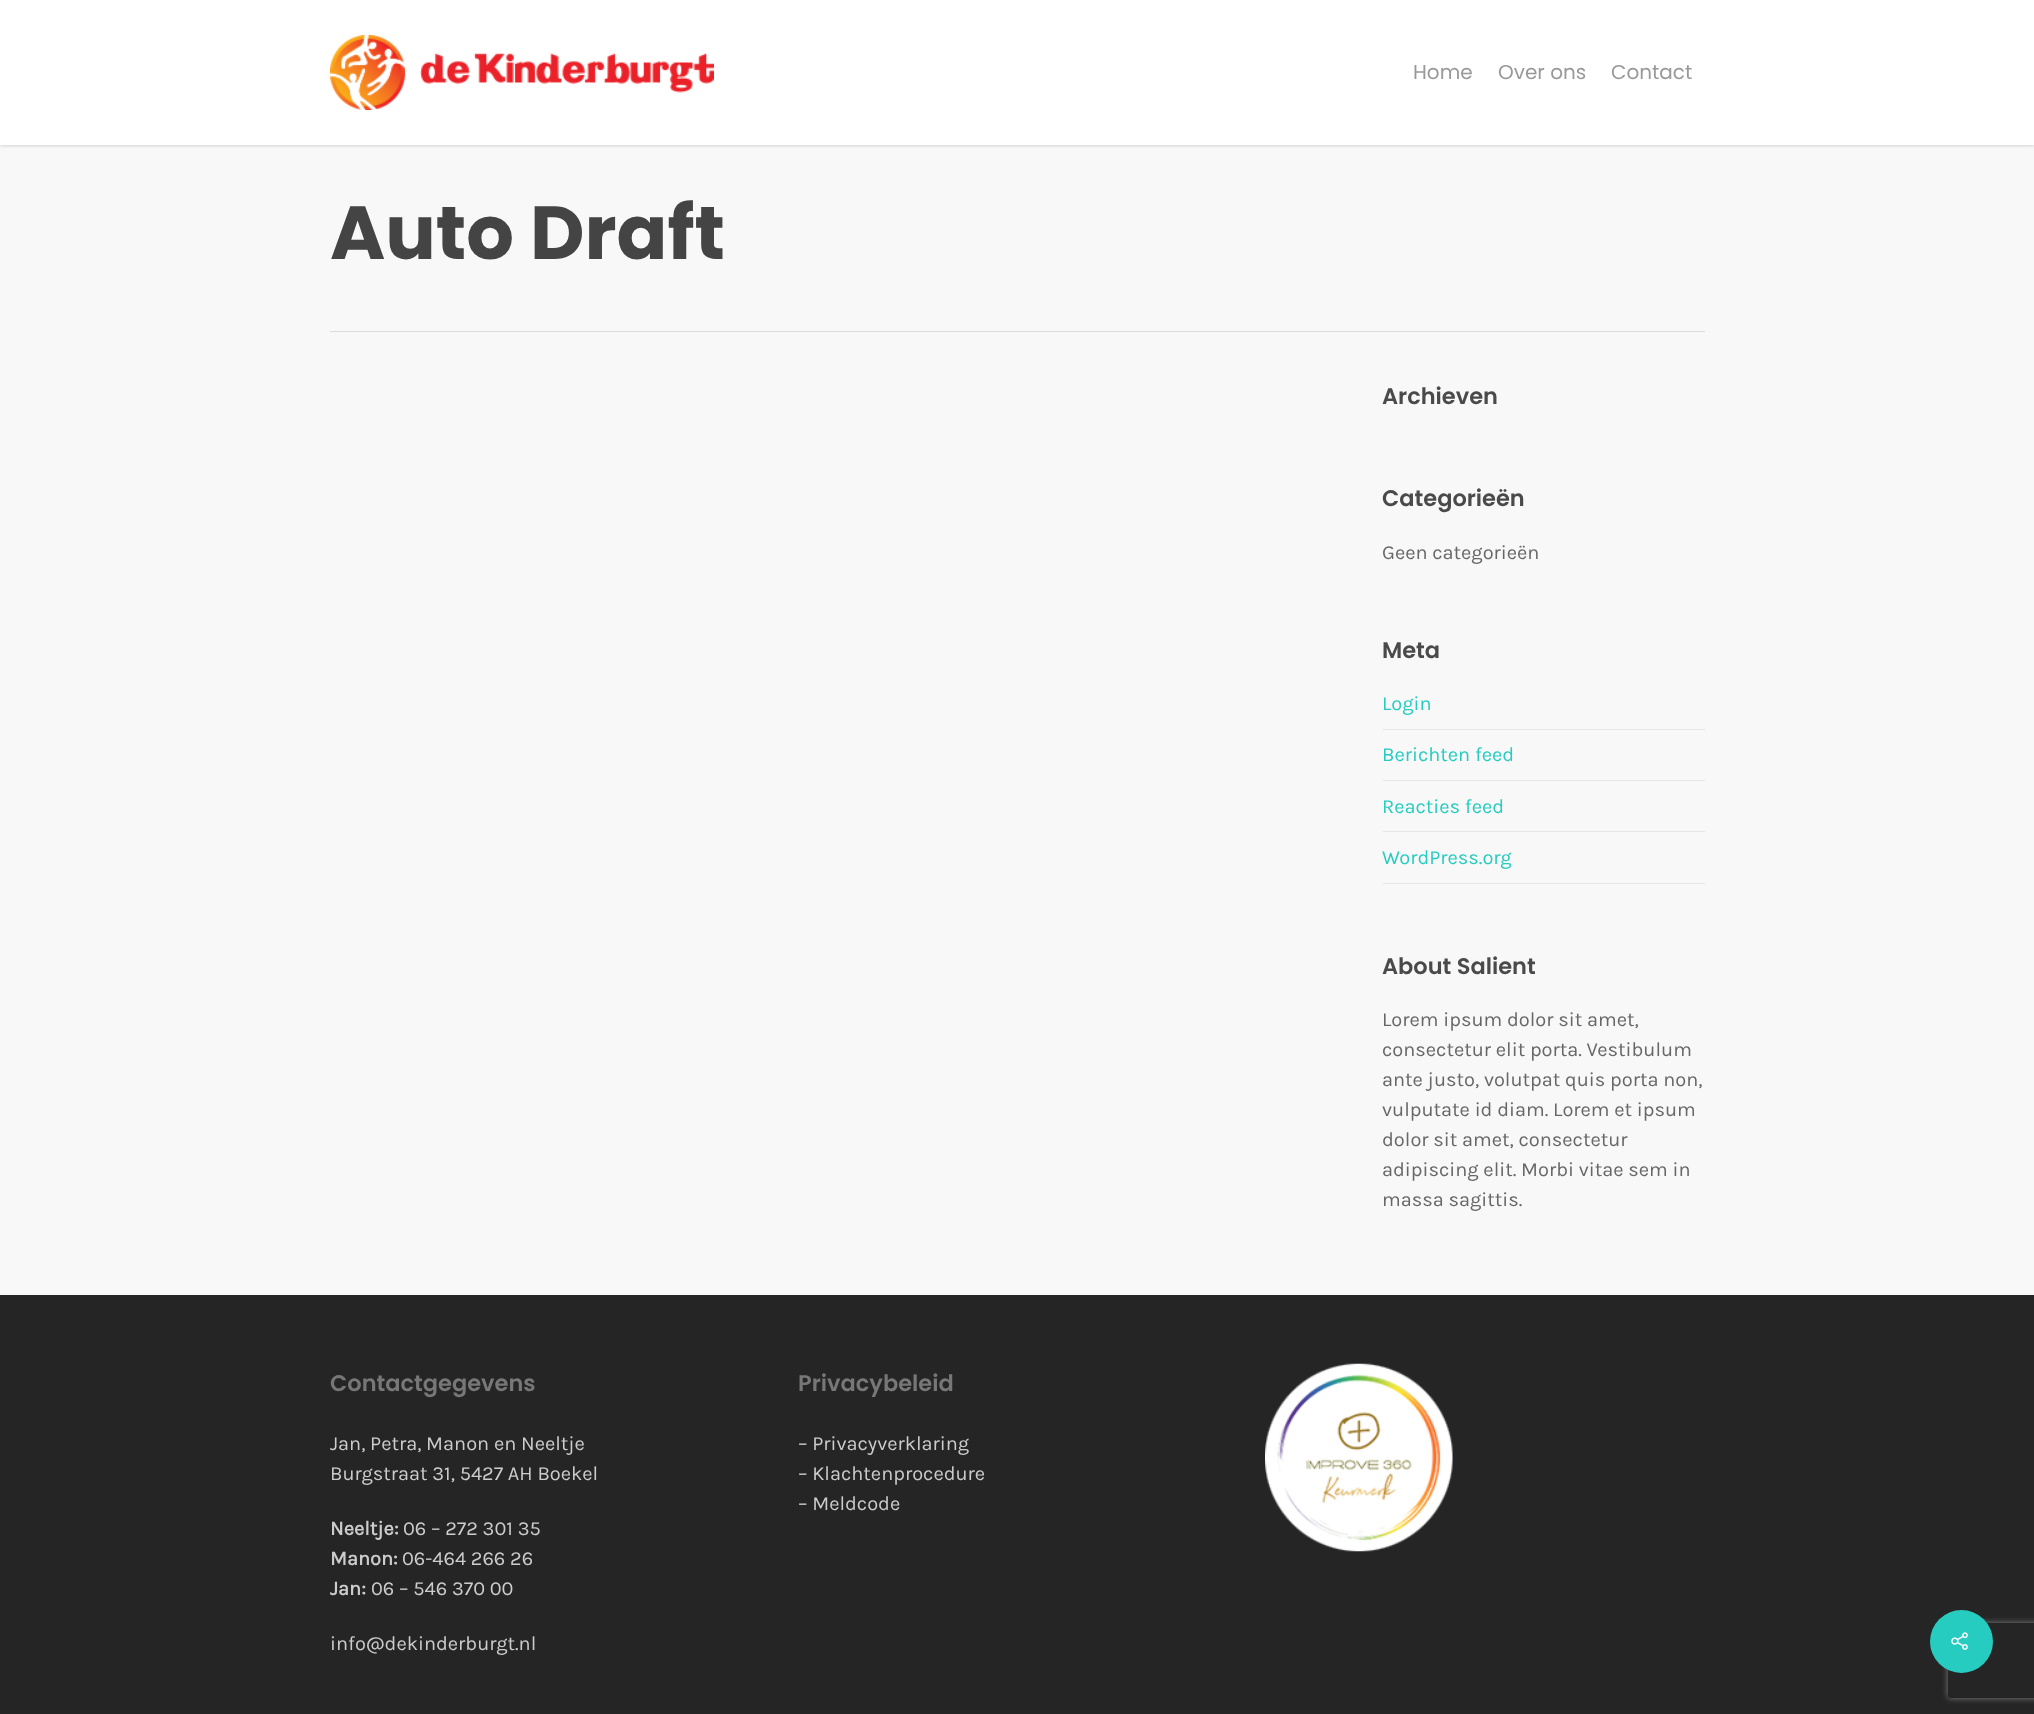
<!DOCTYPE html>
<meta charset="utf-8">
<style>body { margin: 0 } canvas { display: block }</style>
<canvas id="canvas" width="2034" height="1714"></canvas>
<img id="img1" src="images/1.png" hidden>
<img id="img2" src="images/2.png" hidden>
<img id="img3" src="images/3.png" hidden>
<script>
window.onload = function () {
    const canvas = document.getElementById('canvas');
    const context = canvas.getContext('2d');
    context.miterLimit = 4;
    context.fontKerning = 'normal';

    context.fillStyle = 'rgb(255, 255, 255)';
    context.fillRect(0, 0, 2034, 1714);
    context.fillStyle = 'rgb(248, 248, 248)';
    context.fillRect(0, 145, 2034, 1150);
    context.save();
    context.beginPath();
    context.rect(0, 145, 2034, 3);
    context.clip();
    context.fillStyle = 'rgba(0, 0, 0, 0.22)';
    context.filter = 'blur(2px)';
    context.beginPath();
    context.rect(0, 0, 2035, 145);
    context.fill();
    context.filter = 'none';
    context.restore();
    context.drawImage(document.getElementById('img1'), 330, 35, 384, 75);
    context.fillStyle = 'rgb(221, 221, 221)';
    context.fillRect(330, 331, 1375, 1);
    context.fillStyle = 'rgb(230, 230, 230)';
    context.fillRect(1383, 729, 322, 1);
    context.fillRect(1383, 780, 322, 1);
    context.fillRect(1383, 831, 322, 1);
    context.fillRect(1383, 883, 322, 1);
    context.fillStyle = 'rgb(37, 37, 37)';
    context.fillRect(0, 1295, 2034, 419);
    context.drawImage(document.getElementById('img2'), 1265, 1363, 188, 189);
    context.save();
    context.beginPath();
    context.moveTo(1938, 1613);
    context.lineTo(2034, 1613);
    context.lineTo(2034, 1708);
    context.lineTo(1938, 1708);
    context.closePath();
    context.moveTo(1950.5, 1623);
    context.lineTo(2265.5, 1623);
    context.bezierCurveTo(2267, 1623, 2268, 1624, 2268, 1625.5);
    context.lineTo(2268, 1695.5);
    context.bezierCurveTo(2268, 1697, 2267, 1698, 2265.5, 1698);
    context.lineTo(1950.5, 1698);
    context.bezierCurveTo(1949, 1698, 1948, 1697, 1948, 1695.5);
    context.lineTo(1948, 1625.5);
    context.bezierCurveTo(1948, 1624, 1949, 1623, 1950.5, 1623);
    context.closePath();
    context.clip('evenodd');
    context.fillStyle = 'rgb(128, 128, 128)';
    context.filter = 'blur(3px)';
    context.beginPath();
    context.roundRect(1948, 1623, 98, 75, 2.5);
    context.fill();
    context.filter = 'none';
    context.restore();
    context.fillStyle = 'rgb(39, 204, 192)';
    context.beginPath();
    context.arc(1961.5, 1641.5, 31.5, 0, 2 * Math.PI);
    context.fill();
    context.drawImage(document.getElementById('img3'), 1951, 1632, 17, 18);
    context.font = '20px Poppins';
    context.fillStyle = 'rgb(153, 153, 153)';
    context.fillText('Home', 1413, 79);
    context.fillText('Over ons', 1498, 79);
    context.fillText('Contact', 1611, 79);
    context.font = 'bold 75px Poppins';
    context.fillStyle = 'rgb(68, 68, 68)';
    context.fillText('Auto Draft', 330, 259);
    context.font = '600 22.5px Poppins';
    context.fillStyle = 'rgb(74, 74, 74)';
    context.fillText('Archieven', 1382, 404);
    context.fillText('Categorieën', 1382, 506);
    context.font = '20px Karla';
    context.fillStyle = 'rgb(103, 103, 103)';
    context.fillText('Geen categorieën', 1382, 559);
    context.font = '600 22.5px Poppins';
    context.fillStyle = 'rgb(74, 74, 74)';
    context.fillText('Meta', 1382, 658);
    context.font = '20px Karla';
    context.fillStyle = 'rgb(39, 204, 192)';
    context.fillText('Login', 1382, 710);
    context.fillText('Berichten feed', 1382, 761);
    context.fillText('Reacties feed', 1382, 813);
    context.fillText('WordPress.org', 1382, 864);
    context.font = '600 22.5px Poppins';
    context.fillStyle = 'rgb(74, 74, 74)';
    context.fillText('About Salient', 1382, 974);
    context.font = '20px Karla';
    context.fillStyle = 'rgb(103, 103, 103)';
    context.fillText('Lorem ipsum dolor sit amet,', 1382, 1026);
    context.fillText('consectetur elit porta. Vestibulum', 1382, 1056);
    context.fillText('ante justo, volutpat quis porta non,', 1382, 1086);
    context.fillText('vulputate id diam. Lorem et ipsum', 1382, 1116);
    context.fillText('dolor sit amet, consectetur', 1382, 1146);
    context.fillText('adipiscing elit. Morbi vitae sem in', 1382, 1176);
    context.fillText('massa sagittis.', 1382, 1206);
    context.font = '600 22.5px Poppins';
    context.fillStyle = 'rgb(119, 119, 119)';
    context.fillText('Contactgegevens', 330, 1391);
    context.font = '20px Karla';
    context.fillStyle = 'rgb(204, 204, 204)';
    context.fillText('Jan, Petra, Manon en Neeltje', 330, 1450);
    context.fillText('Burgstraat 31, 5427 AH Boekel', 330, 1480);
    context.font = 'bold 20px Karla';
    context.fillText('Neeltje:', 330, 1535);
    context.font = '20px Karla';
    context.fillText('06 – 272 301 35', 403, 1535);
    context.font = 'bold 20px Karla';
    context.fillText('Manon:', 330, 1565);
    context.font = '20px Karla';
    context.fillText('06-464 266 26', 402, 1565);
    context.font = 'bold 20px Karla';
    context.fillText('Jan:', 330, 1595);
    context.font = '20px Karla';
    context.fillText('06 – 546 370 00', 371, 1595);
    context.fillText('info@dekinderburgt.nl', 330, 1650);
    context.font = '600 22.5px Poppins';
    context.fillStyle = 'rgb(119, 119, 119)';
    context.fillText('Privacybeleid', 798, 1391);
    context.font = '20px Karla';
    context.fillStyle = 'rgb(204, 204, 204)';
    context.fillText('– Privacyverklaring', 798, 1450);
    context.fillText('– Klachtenprocedure', 798, 1480);
    context.fillText('– Meldcode', 798, 1510);
};
</script>
